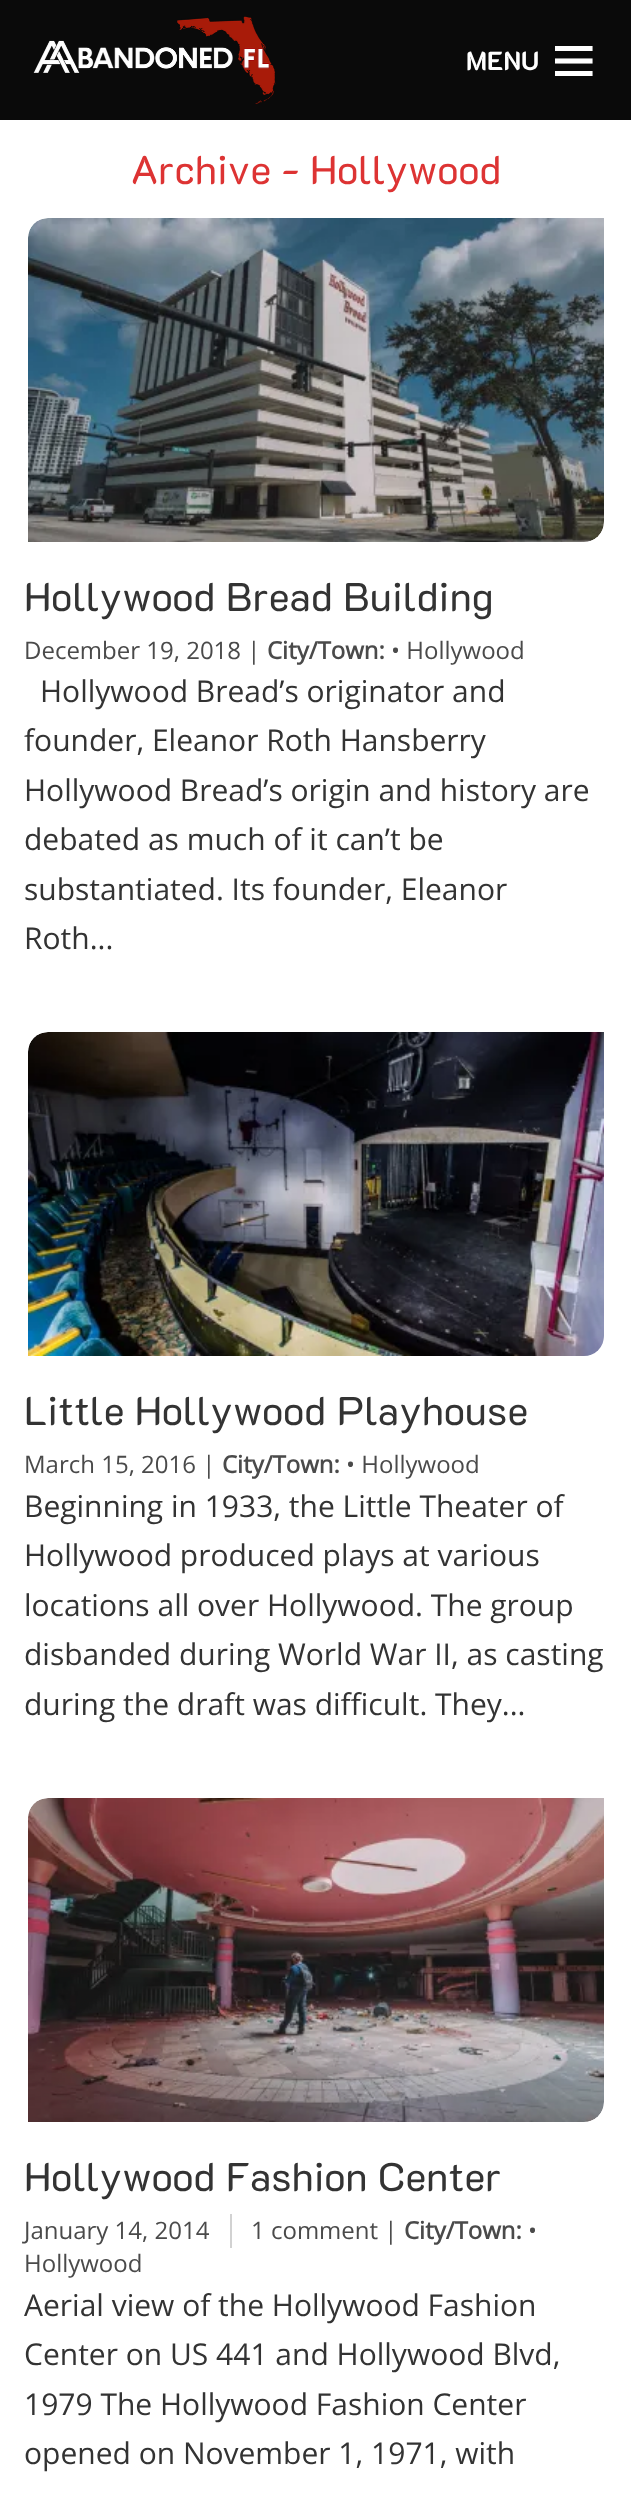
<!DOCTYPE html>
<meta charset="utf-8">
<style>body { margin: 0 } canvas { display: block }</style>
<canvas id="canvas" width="631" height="2496"></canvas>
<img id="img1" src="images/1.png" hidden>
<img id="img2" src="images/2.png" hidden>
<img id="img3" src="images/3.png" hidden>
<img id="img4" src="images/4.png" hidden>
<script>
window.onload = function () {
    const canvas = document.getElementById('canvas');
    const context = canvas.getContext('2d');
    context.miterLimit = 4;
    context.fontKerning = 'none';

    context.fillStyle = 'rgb(255, 255, 255)';
    context.fillRect(0, 0, 631, 2496);
    context.fillStyle = 'rgb(10, 10, 10)';
    context.fillRect(0, 0, 631, 120);
    context.drawImage(document.getElementById('img1'), 33, 16, 243, 88);
    context.drawImage(document.getElementById('img2'), 28, 218, 576, 324);
    context.drawImage(document.getElementById('img3'), 28, 1032, 576, 324);
    context.drawImage(document.getElementById('img4'), 28, 1798, 576, 324);
    context.fillStyle = 'rgb(210, 210, 210)';
    context.fillRect(230, 2214, 2, 34);
    context.font = 'bold 26px "K2D"';
    context.fillStyle = 'rgb(255, 255, 255)';
    context.fillText('MENU', 466, 70);
    context.font = '40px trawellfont';
    context.fillText('𐦺', 555, 76);
    context.font = '40px "K2D"';
    context.fillStyle = 'rgb(221, 51, 51)';
    context.fillText('Archive - Hollywood', 131, 184);
    context.fillStyle = 'rgb(51, 51, 51)';
    context.fillText('Hollywood', 24, 611);
    context.fillText('Bread Building', 226, 611);
    context.font = '24px Open Sans';
    context.fillStyle = 'rgb(74, 74, 74)';
    context.fillText('December 19, 2018 |', 24, 659);
    context.font = 'bold 24px Open Sans';
    context.fillText('City/Town:', 267, 659);
    context.font = '24px Open Sans';
    context.fillText('• Hollywood', 391, 659);
    context.font = '30px Open Sans';
    context.fillStyle = 'rgb(51, 51, 51)';
    context.fillText('Hollywood Bread’s originator and', 40, 702);
    context.fillText('founder, Eleanor Roth Hansberry', 24, 751);
    context.fillText('Hollywood Bread’s origin and history are', 24, 801);
    context.fillText('debated as much of it can’t be', 24, 850);
    context.fillText('substantiated. Its founder, Eleanor', 24, 900);
    context.fillText('Roth...', 24, 949);
    context.font = '40px "K2D"';
    context.fillText('Little Hollywood', 24, 1425);
    context.fillText('Playhouse', 337, 1425);
    context.font = '24px Open Sans';
    context.fillStyle = 'rgb(74, 74, 74)';
    context.fillText('March 15, 2016 |', 24, 1473);
    context.font = 'bold 24px Open Sans';
    context.fillText('City/Town:', 222, 1473);
    context.font = '24px Open Sans';
    context.fillText('• Hollywood', 346, 1473);
    context.font = '30px Open Sans';
    context.fillStyle = 'rgb(51, 51, 51)';
    context.fillText('Beginning in 1933, the Little Theater of', 24, 1517);
    context.fillText('Hollywood produced plays at various', 24, 1566);
    context.fillText('locations all over Hollywood. The group', 24, 1616);
    context.fillText('disbanded during World War II, as casting', 24, 1665);
    context.fillText('during the draft was difficult. They...', 24, 1715);
    context.font = '40px "K2D"';
    context.fillText('Hollywood', 24, 2191);
    context.fillText('Fashion Center', 226, 2191);
    context.font = '24px Open Sans';
    context.fillStyle = 'rgb(74, 74, 74)';
    context.fillText('January 14, 2014', 24, 2239);
    context.fillText('1 comment |', 251, 2239);
    context.font = 'bold 24px Open Sans';
    context.fillText('City/Town:', 404, 2239);
    context.font = '24px Open Sans';
    context.fillText('•', 528, 2239);
    context.fillText('Hollywood', 24, 2272);
    context.font = '30px Open Sans';
    context.fillStyle = 'rgb(51, 51, 51)';
    context.fillText('Aerial view of the Hollywood Fashion', 24, 2316);
    context.fillText('Center on US 441 and Hollywood Blvd,', 24, 2365);
    context.fillText('1979 The Hollywood Fashion Center', 24, 2415);
    context.fillText('opened on November 1, 1971, with', 24, 2464);
};
</script>
